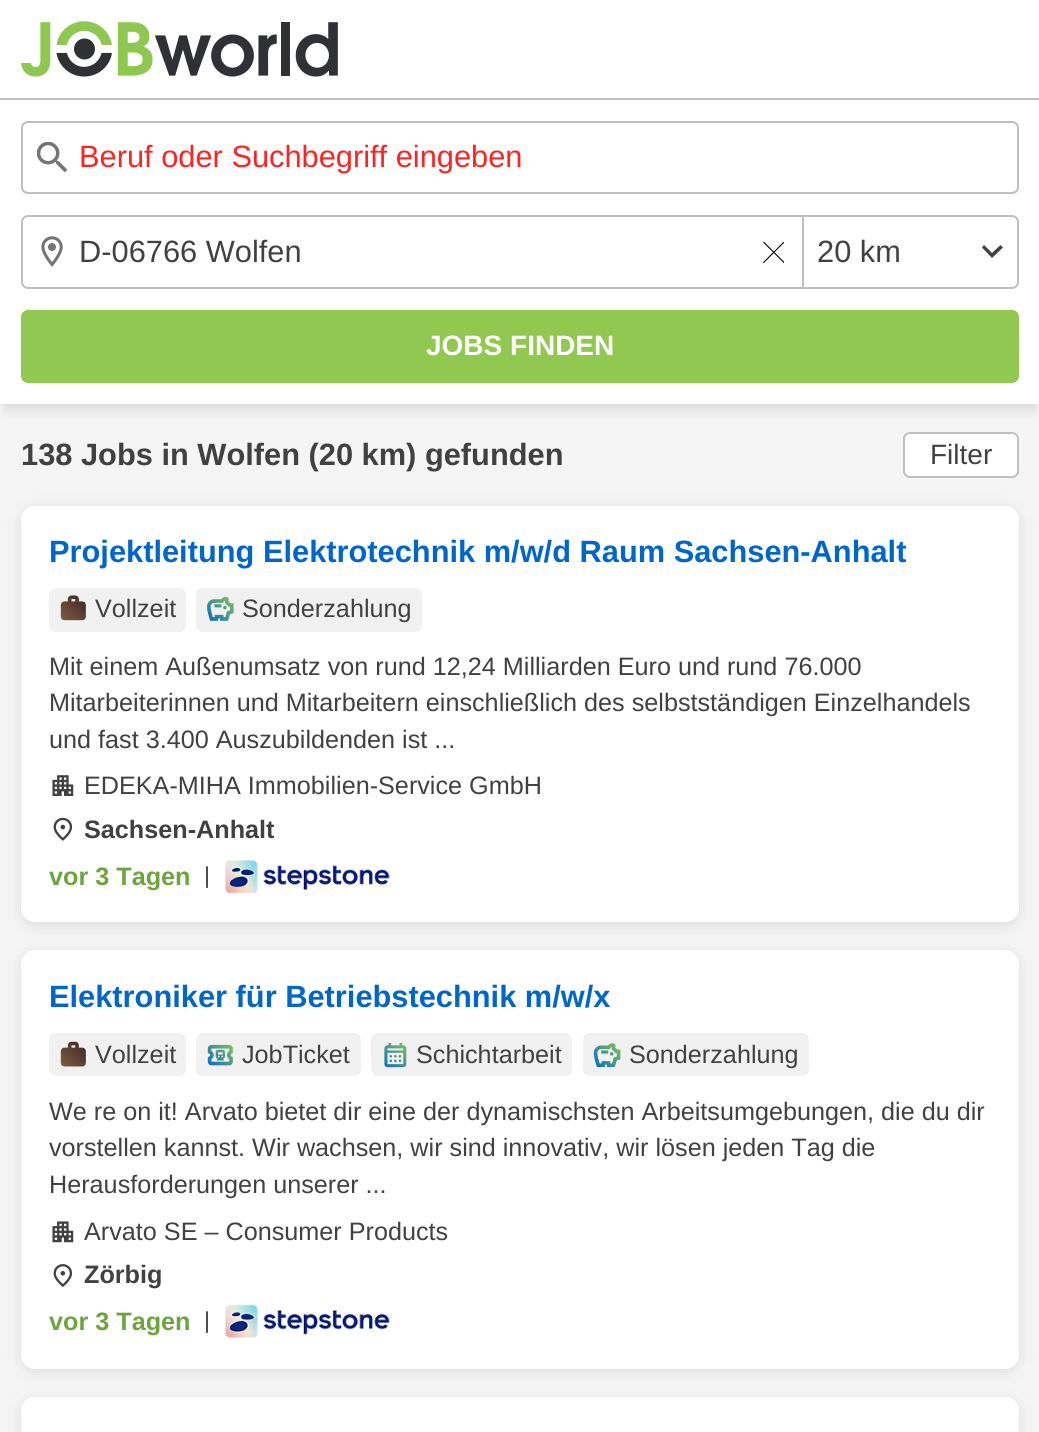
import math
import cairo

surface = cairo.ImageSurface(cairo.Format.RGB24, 1039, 1432)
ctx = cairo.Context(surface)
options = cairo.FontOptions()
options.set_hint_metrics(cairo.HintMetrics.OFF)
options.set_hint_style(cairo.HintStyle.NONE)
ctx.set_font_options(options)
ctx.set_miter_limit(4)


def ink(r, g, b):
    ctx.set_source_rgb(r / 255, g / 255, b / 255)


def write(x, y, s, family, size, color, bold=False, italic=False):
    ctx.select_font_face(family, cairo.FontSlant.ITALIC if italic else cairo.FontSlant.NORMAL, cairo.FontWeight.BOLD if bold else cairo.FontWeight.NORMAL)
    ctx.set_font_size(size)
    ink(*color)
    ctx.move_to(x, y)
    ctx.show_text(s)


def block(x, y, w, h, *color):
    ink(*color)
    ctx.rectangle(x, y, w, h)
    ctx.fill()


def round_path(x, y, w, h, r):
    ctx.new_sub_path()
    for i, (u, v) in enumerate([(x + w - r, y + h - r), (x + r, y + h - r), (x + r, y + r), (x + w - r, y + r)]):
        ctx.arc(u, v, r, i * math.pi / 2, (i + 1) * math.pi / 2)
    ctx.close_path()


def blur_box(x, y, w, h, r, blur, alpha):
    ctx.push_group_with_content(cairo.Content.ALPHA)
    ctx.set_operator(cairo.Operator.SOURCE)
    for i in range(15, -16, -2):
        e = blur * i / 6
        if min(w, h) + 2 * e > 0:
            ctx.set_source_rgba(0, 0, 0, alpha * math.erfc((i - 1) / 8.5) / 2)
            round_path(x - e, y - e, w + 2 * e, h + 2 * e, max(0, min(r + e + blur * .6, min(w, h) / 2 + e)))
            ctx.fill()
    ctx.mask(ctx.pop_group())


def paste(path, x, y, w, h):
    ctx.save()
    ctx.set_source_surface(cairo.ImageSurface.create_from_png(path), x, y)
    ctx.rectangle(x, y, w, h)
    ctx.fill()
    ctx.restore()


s1 = dict(family="Liberation Sans", size=30.8, color=(255, 34, 34))
s2 = dict(family="Liberation Sans", size=30.8, color=(65, 65, 65))
s3 = dict(family="Liberation Sans", size=28, color=(255, 255, 255), bold=True)
s4 = dict(family="Liberation Sans", size=30.8, color=(65, 65, 65), bold=True)
s5 = dict(family="Liberation Sans", size=28, color=(65, 65, 65))
s6 = dict(family="Liberation Sans", size=30.8, color=(0, 102, 204), bold=True)
s7 = dict(family="Liberation Sans", size=25.2, color=(65, 65, 65))
s8 = dict(family="Liberation Sans", size=25.2, color=(65, 65, 65), bold=True)
s9 = dict(family="Liberation Sans", size=25.2, color=(109, 164, 62), bold=True)
s10 = dict(family="Liberation Sans", size=23, color=(65, 65, 65))

ink(245, 245, 245)
ctx.paint()
block(0, 0, 1039, 98, 255, 255, 255)
ink(215, 215, 215)
blur_box(4, 114, 1032, 297, 0, 5, 0.8)
block(0, 98, 1039, 2, 191, 191, 191)
paste("pic1.png", 21, 21, 317, 56)
block(0, 100, 1039, 304, 255, 255, 255)
paste("pic2.png", 37, 142, 31, 31)
round_path(22, 122, 996, 71, 6)
ink(191, 191, 191)
ctx.stroke()
write(79, 167, "Beruf oder Suchbegriff eingeben", **s1)
round_path(22, 216, 996, 72, 6)
ink(191, 191, 191)
ctx.stroke()
paste("pic3.png", 41, 236, 22, 31)
write(79, 262, "D-06766 Wolfen", **s2)
ctx.new_path()
ctx.move_to(1000.5, 245)
ctx.line_to(992, 253)
ctx.line_to(984, 245)
ctx.line_to(982, 247.5)
ctx.line_to(992, 258)
ctx.line_to(1003, 247.5)
ctx.close_path()
ctx.fill()
block(802, 217, 2, 70, 191, 191, 191)
write(817, 262, "20 km", **s2)
paste("pic4.png", 763, 242, 21, 21)
ink(145, 200, 80)
round_path(21, 310, 998, 73, 7)
ctx.fill()
write(426, 355, "JOBS FINDEN", **s3)
write(21, 465, "138 Jobs in Wolfen (20 km) gefunden", **s4)
ink(255, 255, 255)
round_path(904, 433, 114, 44, 6)
ctx.fill_preserve()
ink(191, 191, 191)
ctx.stroke()
write(930, 464, "Filter", **s5)
ink(215, 215, 215)
blur_box(21, 509, 998, 417, 14, 7, 0.8)
ink(255, 255, 255)
round_path(21, 506, 998, 416, 14)
ctx.fill()
write(49, 562, "Projektleitung Elektrotechnik m/w/d Raum Sachsen-Anhalt", **s6)
ink(241, 241, 241)
round_path(49, 588, 137, 44, 7)
ctx.fill()
paste("pic5.png", 60, 595, 26, 26)
write(95, 617, "Vollzeit", **s7)
ink(241, 241, 241)
round_path(196, 588, 226, 44, 7)
ctx.fill()
paste("pic6.png", 207, 596, 27, 25)
write(242, 617, "Sonderzahlung", **s7)
write(49, 675, "Mit einem Außenumsatz von rund 12,24 Milliarden Euro und rund 76.000", **s7)
write(49, 711, "Mitarbeiterinnen und Mitarbeitern einschließlich des selbstständigen Einzelhandels", **s7)
write(49, 748, "und fast 3.400 Auszubildenden ist ...", **s7)
paste("pic7.png", 52, 775, 22, 21)
write(84, 794, "EDEKA-MIHA Immobilien-Service GmbH", **s7)
paste("pic8.png", 53, 817, 20, 24)
write(84, 838, "Sachsen-Anhalt", **s8)
write(49, 885, "vor 3 Tagen", **s9)
write(204, 883, "|", **s10)
paste("pic9.png", 225, 860, 165, 34)
ink(215, 215, 215)
blur_box(21, 954, 998, 418, 14, 7, 0.8)
ink(255, 255, 255)
round_path(21, 950, 998, 419, 14)
ctx.fill()
write(49, 1007, "Elektroniker für Betriebstechnik m/w/x", **s6)
ink(241, 241, 241)
round_path(49, 1033, 137, 43, 7)
ctx.fill()
paste("pic10.png", 60, 1041, 26, 26)
write(95, 1063, "Vollzeit", **s7)
ink(241, 241, 241)
round_path(196, 1033, 165, 43, 7)
ctx.fill()
paste("pic11.png", 207, 1044, 26, 22)
write(242, 1063, "JobTicket", **s7)
ink(241, 241, 241)
round_path(371, 1033, 201, 43, 7)
ctx.fill()
paste("pic12.png", 384, 1043, 23, 25)
write(416, 1063, "Schichtarbeit", **s7)
ink(241, 241, 241)
round_path(583, 1033, 226, 43, 7)
ctx.fill()
paste("pic13.png", 593, 1043, 28, 25)
write(629, 1063, "Sonderzahlung", **s7)
write(49, 1120, "We re on it! Arvato bietet dir eine der dynamischsten Arbeitsumgebungen, die du dir", **s7)
write(49, 1156, "vorstellen kannst. Wir wachsen, wir sind innovativ, wir lösen jeden Tag die", **s7)
write(49, 1193, "Herausforderungen unserer ...", **s7)
paste("pic14.png", 52, 1221, 22, 22)
write(84, 1240, "Arvato SE – Consumer Products", **s7)
paste("pic15.png", 53, 1264, 20, 24)
write(84, 1283, "Zörbig", **s8)
write(49, 1330, "vor 3 Tagen", **s9)
write(204, 1328, "|", **s10)
paste("pic16.png", 225, 1304, 165, 34)
ink(215, 215, 215)
blur_box(21, 1400, 998, 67, 14, 7, 0.8)
ink(255, 255, 255)
round_path(21, 1397, 998, 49, 14)
ctx.fill()
surface.write_to_png("screenshot.png")
